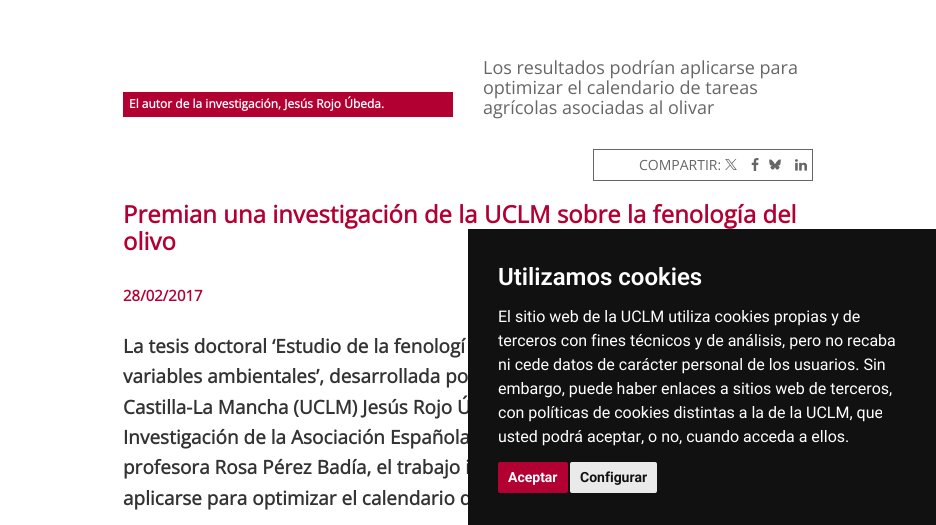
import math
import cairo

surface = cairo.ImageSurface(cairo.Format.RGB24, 936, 525)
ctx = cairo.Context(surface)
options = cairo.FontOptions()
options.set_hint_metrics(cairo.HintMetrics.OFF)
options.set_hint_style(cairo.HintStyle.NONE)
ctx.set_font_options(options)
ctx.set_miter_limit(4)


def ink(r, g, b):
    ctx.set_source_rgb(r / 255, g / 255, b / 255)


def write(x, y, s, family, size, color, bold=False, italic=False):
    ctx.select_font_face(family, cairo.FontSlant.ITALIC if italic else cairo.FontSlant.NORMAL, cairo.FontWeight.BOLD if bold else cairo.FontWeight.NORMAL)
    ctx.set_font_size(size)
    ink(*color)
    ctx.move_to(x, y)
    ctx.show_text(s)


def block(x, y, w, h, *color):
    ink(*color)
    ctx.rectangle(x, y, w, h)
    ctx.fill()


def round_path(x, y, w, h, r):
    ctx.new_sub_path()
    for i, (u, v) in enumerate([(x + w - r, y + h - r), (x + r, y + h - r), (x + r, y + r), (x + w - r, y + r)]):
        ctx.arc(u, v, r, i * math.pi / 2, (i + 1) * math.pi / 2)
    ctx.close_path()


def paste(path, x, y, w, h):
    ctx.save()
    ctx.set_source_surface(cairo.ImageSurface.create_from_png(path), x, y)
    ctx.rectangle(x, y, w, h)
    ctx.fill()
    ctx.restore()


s1 = dict(family="Open Sans", size=12, color=(255, 255, 255), bold=True)
s2 = dict(family="Open Sans", size=18, color=(102, 102, 102))
s3 = dict(family="Open Sans", size=14, color=(102, 102, 102))
s4 = dict(family="Open Sans", size=24, color=(179, 0, 51), bold=True)
s5 = dict(family="Open Sans", size=15, color=(179, 0, 51), bold=True)
s6 = dict(family="Open Sans", size=19, color=(51, 51, 51), bold=True)
s7 = dict(family="Roboto SemiBold", size=24, color=(255, 255, 255))
s8 = dict(family="Roboto", size=16, color=(255, 255, 255))
s9 = dict(family="Roboto", size=14, color=(255, 255, 255), bold=True)
s10 = dict(family="Roboto", size=14, color=(17, 17, 17), bold=True)

ink(255, 255, 255)
ctx.paint()
block(123, 92, 330, 25, 179, 0, 51)
write(129, 108, "El autor de la investigación, Jesús Rojo Úbeda.", **s1)
write(483, 74, "Los resultados podrían aplicarse para", **s2)
write(483, 94, "optimizar el calendario de tareas", **s2)
write(483, 114, "agrícolas asociadas al olivar", **s2)
ctx.rectangle(593.5, 149.5, 219, 31)
ctx.set_line_width(1)
ctx.stroke()
write(639, 170, "COMPARTIR:", **s3)
paste("pic1.png", 725, 159, 12, 11)
paste("pic2.png", 751, 158, 8, 13)
paste("pic3.png", 769, 159, 12, 11)
paste("pic4.png", 795, 159, 12, 12)
write(123, 223, "Premian una investigación de la UCLM sobre la fenología del", **s4)
write(123, 250, "olivo", **s4)
write(123, 301, "28/02/2017", **s5)
write(123, 353, "La tesis doctoral ‘Estudio de la fenologí", **s6)
write(123, 383, "variables ambientales’, desarrollada po", **s6)
write(123, 414, "Castilla-La Mancha (UCLM) Jesús Rojo Ú", **s6)
write(123, 444, "Investigación de la Asociación Española", **s6)
write(123, 474, "profesora Rosa Pérez Badía, el trabajo i", **s6)
write(123, 505, "aplicarse para optimizar el calendario d", **s6)
block(468, 229, 468, 296, 17, 17, 17)
write(498, 285, "Utilizamos cookies", **s7)
write(498, 322, "El sitio web de la UCLM utiliza cookies propias y de", **s8)
write(498, 346, "terceros con fines técnicos y de análisis, pero no recaba", **s8)
write(498, 370, "ni cede datos de carácter personal de los usuarios. Sin", **s8)
write(498, 394, "embargo, puede haber enlaces a sitios web de terceros,", **s8)
write(498, 418, "con políticas de cookies distintas a la de la UCLM, que", **s8)
write(498, 442, "usted podrá aceptar, o no, cuando acceda a ellos.", **s8)
ink(179, 0, 51)
round_path(498, 462, 70, 31, 2)
ctx.fill()
write(508, 482, "Aceptar", **s9)
ink(234, 234, 234)
round_path(570, 462, 87, 31, 2)
ctx.fill()
write(580, 482, "Configurar", **s10)
surface.write_to_png("screenshot.png")
